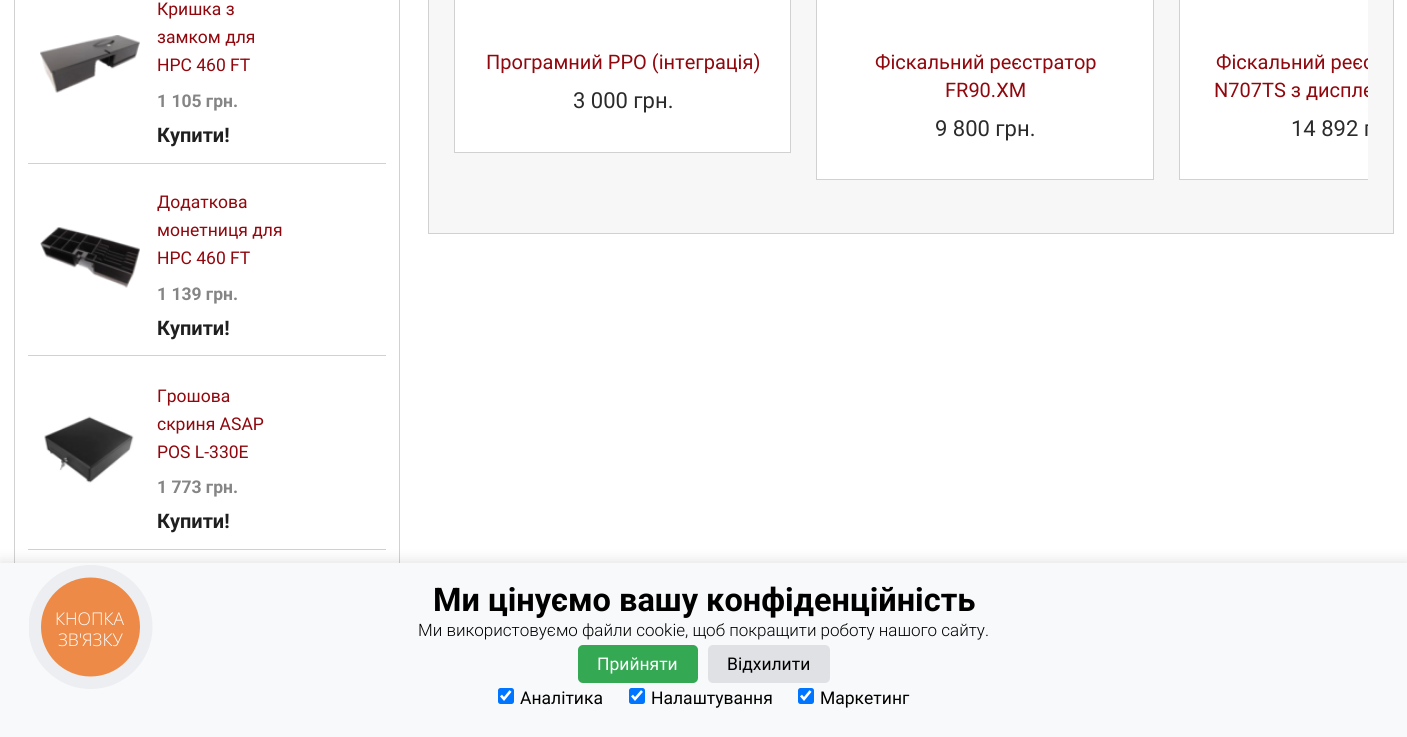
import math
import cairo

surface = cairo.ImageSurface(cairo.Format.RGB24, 1407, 737)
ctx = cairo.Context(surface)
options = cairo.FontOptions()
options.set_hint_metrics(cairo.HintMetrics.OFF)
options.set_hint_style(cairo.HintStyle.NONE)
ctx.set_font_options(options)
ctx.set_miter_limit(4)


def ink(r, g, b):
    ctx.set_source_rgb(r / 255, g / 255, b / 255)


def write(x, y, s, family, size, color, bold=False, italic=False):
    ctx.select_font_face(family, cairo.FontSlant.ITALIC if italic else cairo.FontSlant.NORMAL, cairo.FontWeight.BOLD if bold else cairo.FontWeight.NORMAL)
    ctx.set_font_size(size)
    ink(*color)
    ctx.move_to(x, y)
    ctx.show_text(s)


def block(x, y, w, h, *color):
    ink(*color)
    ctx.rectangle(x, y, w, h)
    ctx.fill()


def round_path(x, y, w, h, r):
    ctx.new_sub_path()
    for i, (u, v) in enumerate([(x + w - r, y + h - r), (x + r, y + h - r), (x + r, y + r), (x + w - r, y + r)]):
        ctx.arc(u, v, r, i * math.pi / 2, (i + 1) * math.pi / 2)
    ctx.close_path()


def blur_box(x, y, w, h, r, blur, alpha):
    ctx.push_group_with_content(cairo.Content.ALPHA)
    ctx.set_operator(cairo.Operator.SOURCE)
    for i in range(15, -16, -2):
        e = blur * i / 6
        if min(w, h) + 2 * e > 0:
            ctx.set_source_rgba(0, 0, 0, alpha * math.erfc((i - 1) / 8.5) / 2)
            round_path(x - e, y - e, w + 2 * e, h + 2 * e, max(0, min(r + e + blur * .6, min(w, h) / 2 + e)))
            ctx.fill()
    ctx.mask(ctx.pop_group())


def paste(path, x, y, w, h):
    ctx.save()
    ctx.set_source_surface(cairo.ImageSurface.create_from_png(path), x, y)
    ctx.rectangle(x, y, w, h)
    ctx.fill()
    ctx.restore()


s1 = dict(family="Roboto", size=17.5, color=(144, 7, 13))
s2 = dict(family="Roboto", size=17.5, color=(133, 133, 133), bold=True)
s3 = dict(family="Roboto", size=20, color=(31, 31, 31), bold=True)
s4 = dict(family="Roboto", size=20, color=(144, 7, 13))
s5 = dict(family="Roboto", size=22, color=(43, 43, 43))
s6 = dict(family="Open Sans Light", size=17.5, color=(255, 255, 255))
s7 = dict(family="Roboto", size=32.5, color=(0, 0, 0), bold=True)
s8 = dict(family="Roboto Light", size=17, color=(0, 0, 0))
s9 = dict(family="Roboto", size=17.5, color=(255, 255, 255))
s10 = dict(family="Roboto", size=17.5, color=(0, 0, 0))

ink(255, 255, 255)
ctx.paint()
ink(209, 209, 209)
ctx.set_fill_rule(cairo.FillRule.EVEN_ODD)
ctx.new_path()
ctx.move_to(14, -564)
ctx.line_to(400, -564)
ctx.line_to(400, 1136)
ctx.curve_to(400, 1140, 397, 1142, 394, 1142)
ctx.line_to(20, 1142)
ctx.curve_to(17, 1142, 14, 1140, 14, 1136)
ctx.close_path()
ctx.move_to(15, -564)
ctx.line_to(399, -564)
ctx.line_to(399, 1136)
ctx.curve_to(399, 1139, 397, 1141, 394, 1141)
ctx.line_to(20, 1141)
ctx.curve_to(17, 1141, 15, 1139, 15, 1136)
ctx.close_path()
ctx.fill()
block(28, 163, 358, 1, 209, 209, 209)
paste("pic1.png", 40, 35, 100, 58)
write(157, 15, "Кришка з", **s1)
write(157, 43, "замком для", **s1)
write(157, 71, "HPC 460 FT", **s1)
write(157, 107, "1 105 грн.", **s2)
write(157, 142, "Купити!", **s3)
block(28, 355, 358, 1, 209, 209, 209)
paste("pic2.png", 40, 227, 100, 61)
write(157, 208, "Додаткова", **s1)
write(157, 236, "монетниця для", **s1)
write(157, 264, "HPC 460 FT", **s1)
write(157, 300, "1 139 грн.", **s2)
write(157, 335, "Купити!", **s3)
block(28, 549, 358, 1, 209, 209, 209)
paste("pic3.png", 44, 416, 90, 67)
write(157, 402, "Грошова", **s1)
write(157, 430, "скриня ASAP", **s1)
write(157, 458, "POS L-330E", **s1)
write(157, 493, "1 773 грн.", **s2)
write(157, 528, "Купити!", **s3)
ink(247, 247, 247)
ctx.rectangle(428.5, -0.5, 965, 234)
ctx.fill_preserve()
ink(209, 209, 209)
ctx.set_line_width(1)
ctx.stroke()
ink(255, 255, 255)
ctx.rectangle(454.5, -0.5, 336, 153)
ctx.fill_preserve()
ink(209, 209, 209)
ctx.stroke()
write(486, 69, "Програмний РРО (інтеграція)", **s4)
write(573, 108, "3 000 грн.", **s5)
ink(255, 255, 255)
ctx.rectangle(816.5, -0.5, 337, 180)
ctx.fill_preserve()
ink(209, 209, 209)
ctx.stroke()
write(875, 69, "Фіскальний реєстратор", **s4)
write(945, 97, "FR90.XM", **s4)
write(935, 136, "9 800 грн.", **s5)
block(1180, 0, 188, 179, 255, 255, 255)
ctx.save()
ctx.set_fill_rule(cairo.FillRule.WINDING)
ctx.rectangle(454, 0, 914, 208)
ctx.clip()
ctx.rectangle(1179.5, -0.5, 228, 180)
ink(209, 209, 209)
ctx.stroke()
write(1216, 69, "Фіскальний реєс", **s4)
write(1214, 97, "N707TS з диспле", **s4)
ctx.restore()
ctx.save()
ctx.set_fill_rule(cairo.FillRule.WINDING)
ctx.rectangle(1205, 118, 163, 23)
ctx.clip()
write(1291, 136, "14 892 г", **s5)
ctx.restore()
ink(0, 0, 0)
blur_box(0, 560, 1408, 175, 0, 6, 0.1)
block(0, 563, 1407, 174, 248, 249, 250)
ctx.save()
ctx.set_fill_rule(cairo.FillRule.WINDING)
ctx.rectangle(29, 565, 124, 124)
ctx.clip()
ink(236, 238, 241)
ctx.arc(90.5, 627, 62, 0, 2 * math.pi)
ctx.fill()
ctx.restore()
ink(237, 138, 71)
ctx.arc(90.5, 627, 49.5, 0, 2 * math.pi)
ctx.fill()
write(55, 625, "КНОПКА", **s6)
write(58, 646, "ЗВ'ЯЗКУ", **s6)
write(433, 611, "Ми цінуємо вашу конфіденційність", **s7)
write(418, 636, "Ми використовуємо файли cookie, щоб покращити роботу нашого сайту.", **s8)
ink(52, 168, 83)
round_path(578, 645, 120, 38, 5)
ctx.fill()
write(597, 670, "Прийняти", **s9)
ink(223, 225, 229)
round_path(708, 645, 122, 38, 5)
ctx.fill()
write(727, 670, "Відхилити", **s10)
ink(0, 117, 255)
round_path(498, 688, 16, 16, 2.5)
ctx.fill()
ctx.new_path()
ctx.move_to(501, 695.5)
ctx.line_to(504, 699)
ctx.line_to(510.5, 691)
ink(255, 255, 255)
ctx.set_line_width(2.6)
ctx.stroke()
write(520, 704, "Аналітика", **s10)
ink(0, 117, 255)
round_path(629, 688, 16, 16, 2.5)
ctx.fill()
ctx.new_path()
ctx.move_to(632, 695.5)
ctx.line_to(635, 699)
ctx.line_to(642, 691)
ink(255, 255, 255)
ctx.stroke()
write(651, 704, "Налаштування", **s10)
ink(0, 117, 255)
round_path(798, 688, 16, 16, 2.5)
ctx.fill()
ctx.new_path()
ctx.move_to(801, 695.5)
ctx.line_to(804, 699)
ctx.line_to(810.5, 691)
ink(255, 255, 255)
ctx.stroke()
write(820, 704, "Маркетинг", **s10)
surface.write_to_png("screenshot.png")
